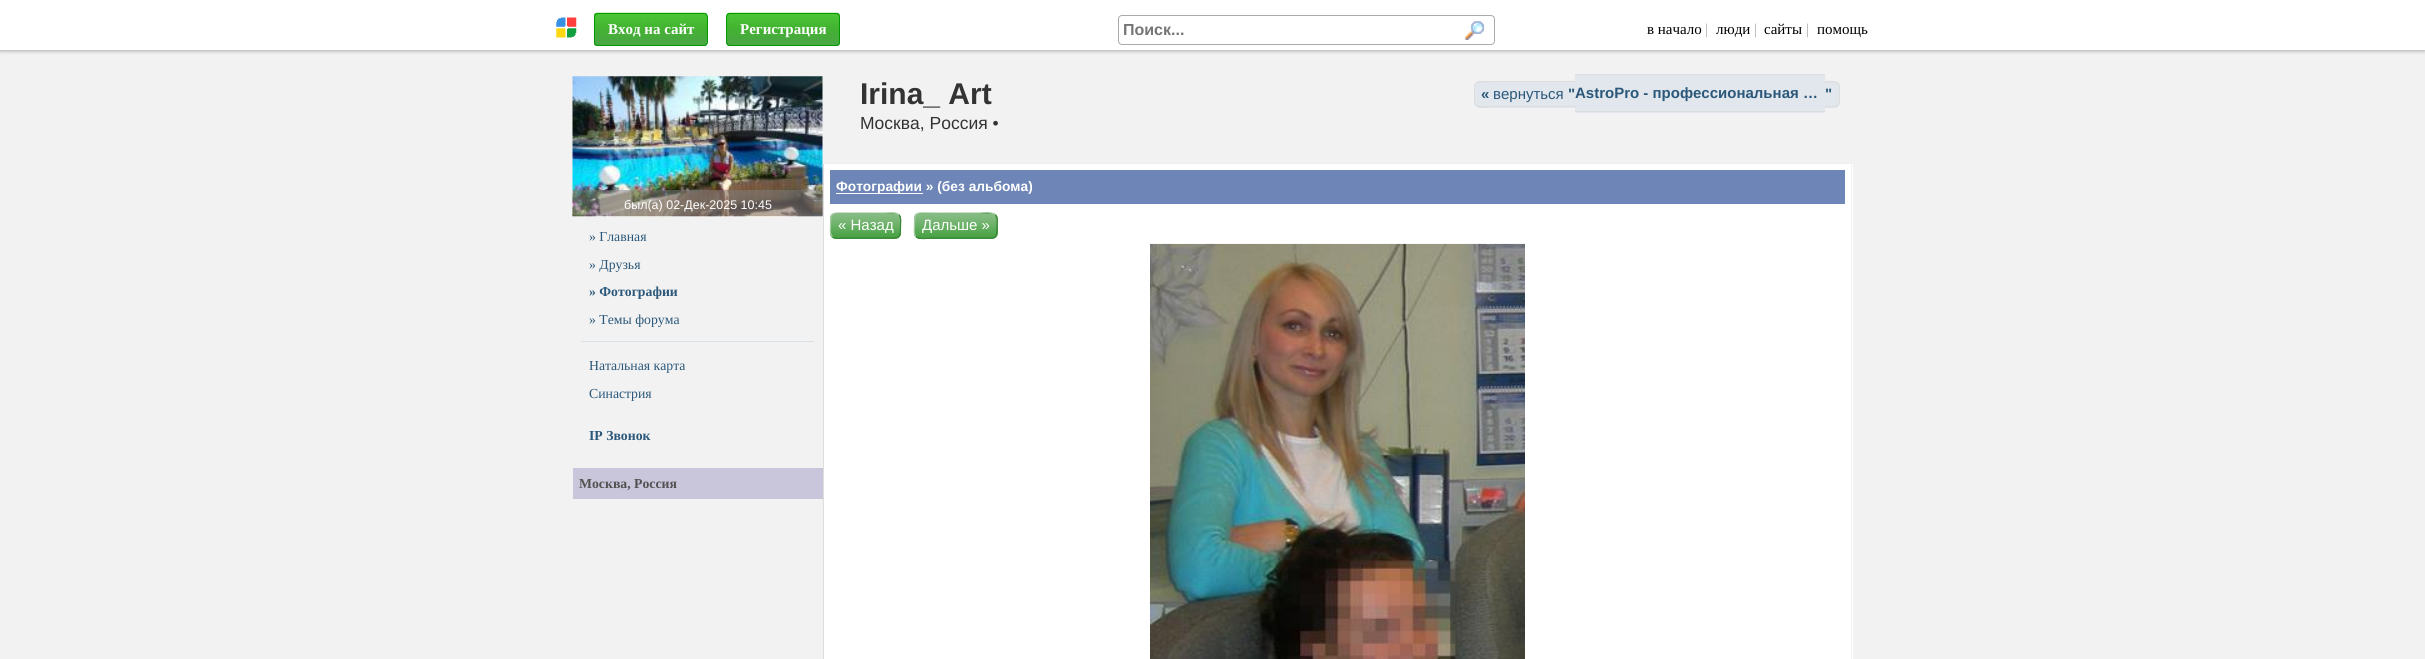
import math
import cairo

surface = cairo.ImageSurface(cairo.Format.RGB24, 2425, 659)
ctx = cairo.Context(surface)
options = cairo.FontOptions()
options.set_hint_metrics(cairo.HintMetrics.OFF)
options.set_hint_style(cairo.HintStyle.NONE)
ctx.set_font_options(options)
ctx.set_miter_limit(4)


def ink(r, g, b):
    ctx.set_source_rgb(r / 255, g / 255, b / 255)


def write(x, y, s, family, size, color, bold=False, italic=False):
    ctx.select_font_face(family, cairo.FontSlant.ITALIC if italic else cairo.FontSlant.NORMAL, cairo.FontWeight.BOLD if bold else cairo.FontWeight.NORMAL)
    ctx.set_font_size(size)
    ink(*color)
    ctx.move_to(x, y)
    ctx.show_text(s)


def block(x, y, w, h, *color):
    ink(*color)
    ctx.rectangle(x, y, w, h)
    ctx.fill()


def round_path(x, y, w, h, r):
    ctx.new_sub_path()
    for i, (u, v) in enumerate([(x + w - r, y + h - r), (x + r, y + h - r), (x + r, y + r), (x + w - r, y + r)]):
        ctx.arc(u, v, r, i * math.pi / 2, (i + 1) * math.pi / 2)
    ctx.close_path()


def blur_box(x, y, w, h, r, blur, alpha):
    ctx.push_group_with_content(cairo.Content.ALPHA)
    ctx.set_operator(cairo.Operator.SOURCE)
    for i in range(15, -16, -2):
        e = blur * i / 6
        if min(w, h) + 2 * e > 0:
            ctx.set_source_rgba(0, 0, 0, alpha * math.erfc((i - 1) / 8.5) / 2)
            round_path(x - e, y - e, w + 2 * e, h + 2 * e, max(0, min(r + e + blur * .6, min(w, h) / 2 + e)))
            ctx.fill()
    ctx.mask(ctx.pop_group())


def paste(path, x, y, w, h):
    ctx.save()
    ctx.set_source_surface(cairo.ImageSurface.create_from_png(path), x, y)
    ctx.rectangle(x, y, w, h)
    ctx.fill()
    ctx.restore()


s1 = dict(family="Liberation Serif", size=15, color=(255, 255, 255), bold=True)
s2 = dict(family="Liberation Sans", size=16, color=(117, 117, 117), bold=True)
s3 = dict(family="Liberation Serif", size=15, color=(0, 0, 0))
s4 = dict(family="Liberation Serif", size=15, color=(170, 170, 170))
s5 = dict(family="Liberation Sans", size=30, color=(51, 51, 51), bold=True)
s6 = dict(family="Liberation Sans", size=17.5, color=(51, 51, 51))
s7 = dict(family="Liberation Sans", size=15, color=(43, 88, 122), bold=True)
s8 = dict(family="Liberation Sans", size=15, color=(43, 88, 122))
s9 = dict(family="Liberation Sans", size=12.5, color=(255, 255, 255))
s10 = dict(family="Liberation Serif", size=13.75, color=(43, 88, 122))
s11 = dict(family="Liberation Serif", size=13.75, color=(43, 88, 122), bold=True)
s12 = dict(family="Liberation Serif", size=13.75, color=(83, 81, 81), bold=True)
s13 = dict(family="Liberation Sans", size=13.75, color=(255, 255, 255), bold=True)
s14 = dict(family="Liberation Sans", size=15, color=(255, 255, 255))

ink(242, 242, 242)
ctx.paint()
ink(170, 170, 170)
blur_box(0, 1, 2425, 50, 0, 2, 1)
block(0, 0, 2425, 50, 255, 255, 255)
paste("pic1.png", 556, 17, 21, 21)
paste("pic2.png", 593, 12, 115, 34)
round_path(594.5, 13.5, 113, 32, 3.5)
ink(0, 153, 0)
ctx.set_line_width(1)
ctx.stroke()
write(608, 34, "Вход на сайт", **s1)
paste("pic3.png", 726, 12, 114, 34)
round_path(726.5, 13.5, 113, 32, 3.5)
ink(0, 153, 0)
ctx.stroke()
write(740, 34, "Регистрация", **s1)
round_path(1118.5, 15.5, 376, 29, 3.5)
ink(170, 170, 170)
ctx.stroke()
write(1123, 35, "Поиск...", **s2)
paste("pic4.png", 1464, 21, 20, 19)
write(1647, 34, "в начало", **s3)
write(1705, 34, "|", **s4)
write(1716, 34, "люди", **s3)
write(1754, 34, "|", **s4)
write(1764, 34, "сайты", **s3)
write(1806, 34, "|", **s4)
write(1817, 34, "помощь", **s3)
write(860, 104, "Irina_ Аrt", **s5)
write(860, 129, "Москва, Россия •", **s6)
ink(225, 231, 237)
ctx.new_path()
ctx.move_to(1480, 81)
ctx.line_to(1489, 81)
ctx.line_to(1489, 108)
ctx.line_to(1480, 108)
ctx.curve_to(1476.5, 108, 1474, 105.5, 1474, 102)
ctx.line_to(1474, 87)
ctx.curve_to(1474, 83.5, 1476.5, 81, 1480, 81)
ctx.close_path()
ctx.fill()
ink(221, 221, 221)
ctx.set_fill_rule(cairo.FillRule.EVEN_ODD)
ctx.new_path()
ctx.move_to(1480, 81)
ctx.line_to(1489, 81)
ctx.line_to(1489, 107.5)
ctx.line_to(1480, 107.5)
ctx.curve_to(1476.5, 107.5, 1474, 104.5, 1474, 101)
ctx.line_to(1474, 87.5)
ctx.curve_to(1474, 84, 1476.5, 81, 1480, 81)
ctx.close_path()
ctx.move_to(1480, 82.5)
ctx.line_to(1489, 82.5)
ctx.line_to(1489, 106)
ctx.line_to(1480, 106)
ctx.curve_to(1477, 106, 1475, 104, 1475, 101)
ctx.line_to(1475, 87.5)
ctx.curve_to(1475, 84.5, 1477, 82.5, 1480, 82.5)
ctx.close_path()
ctx.fill()
block(1489, 82, 80, 26, 225, 231, 237)
block(1489, 81, 80, 1, 221, 221, 221)
block(1489, 106, 80, 1, 221, 221, 221)
block(1569, 81, 6, 27, 225, 231, 237)
block(1569, 81, 6, 1, 221, 221, 221)
block(1569, 106, 6, 1, 221, 221, 221)
block(1575, 75, 250, 38, 225, 231, 237)
block(1575, 74, 250, 1, 221, 221, 221)
block(1575, 111, 250, 1, 221, 221, 221)
ink(225, 231, 237)
ctx.new_path()
ctx.move_to(1825, 81)
ctx.line_to(1834, 81)
ctx.curve_to(1837.5, 81, 1840, 83.5, 1840, 87)
ctx.line_to(1840, 102)
ctx.curve_to(1840, 105.5, 1837.5, 108, 1834, 108)
ctx.line_to(1825, 108)
ctx.close_path()
ctx.fill()
ink(221, 221, 221)
ctx.new_path()
ctx.move_to(1825, 81)
ctx.curve_to(1830, 81, 1838.5, 79.5, 1840, 86)
ctx.line_to(1840, 102.5)
ctx.curve_to(1838.5, 109, 1830, 107.5, 1825, 107.5)
ctx.close_path()
ctx.move_to(1825, 82.5)
ctx.line_to(1834, 82.5)
ctx.curve_to(1836.5, 82.5, 1839, 84.5, 1839, 87.5)
ctx.line_to(1839, 101)
ctx.curve_to(1839, 104, 1836.5, 106, 1834, 106)
ctx.line_to(1825, 106)
ctx.close_path()
ctx.fill()
write(1481, 99, "«", **s7)
write(1493, 99, "вернуться", **s8)
write(1568, 99, "\"", **s7)
write(1575, 98, "AstroPro - профессиональная …", **s7)
write(1825, 99, "\"", **s7)
block(823, 163, 1030, 1, 238, 238, 238)
paste("pic5.png", 572, 76, 251, 141)
ctx.set_source_rgba(0.502, 0.502, 0.502, 0.5)
ctx.rectangle(573, 190, 250, 26)
ctx.fill()
write(624, 209, "был(а) 02-Дек-2025 10:45", **s9)
write(589, 241, "» Главная", **s10)
write(589, 269, "» Друзья", **s10)
write(589, 296, "» Фотографии", **s11)
write(589, 324, "» Темы форума", **s10)
block(581, 341, 233, 1, 218, 225, 232)
write(589, 370, "Натальная карта", **s10)
write(589, 398, "Синастрия", **s10)
write(589, 440, "IP Звонок", **s11)
block(573, 468, 250, 31, 201, 197, 219)
write(579, 488, "Москва, Россия", **s12)
block(824, 164, 1029, 495, 255, 255, 255)
block(1851, 164, 1, 495, 242, 242, 242)
block(823, 164, 1, 495, 221, 221, 221)
block(830, 170, 1015, 34, 109, 134, 183)
block(836, 193, 87, 1, 255, 255, 255)
write(836, 191, "Фотографии » (без альбома)", **s13)
ink(66, 159, 61)
round_path(830, 213, 71, 26, 6)
ctx.fill()
paste("pic6.png", 830, 213, 72, 26)
round_path(914, 213, 84, 26, 6)
ctx.fill()
paste("pic7.png", 913, 213, 85, 26)
ctx.new_path()
ctx.move_to(899, 215)
ctx.curve_to(901.5, 217.5, 900.5, 222.5, 900.5, 225.5)
ctx.curve_to(900.5, 239.5, 899.5, 238, 885, 238)
ctx.line_to(846, 238)
ctx.curve_to(843.5, 238, 835.5, 239.5, 832.5, 236.5)
ink(58, 134, 54)
ctx.set_line_width(1.2)
ctx.stroke()
ctx.new_path()
ctx.move_to(832.5, 236.5)
ctx.curve_to(829.5, 234, 830.5, 229, 830.5, 225.5)
ctx.curve_to(830.5, 211.5, 831.5, 213, 846, 213)
ctx.line_to(885, 213)
ctx.curve_to(888, 213, 896, 211.5, 899, 215)
ink(168, 203, 166)
ctx.stroke()
write(838, 230, "« Назад", **s14)
ctx.new_path()
ctx.move_to(995, 215)
ctx.curve_to(998, 217.5, 997, 222.5, 997, 225.5)
ctx.curve_to(997, 240.5, 995, 238, 979.5, 238)
ctx.line_to(932, 238)
ctx.curve_to(929.5, 238, 919.5, 240, 916, 236.5)
ink(58, 134, 54)
ctx.stroke()
ctx.new_path()
ctx.move_to(916, 236.5)
ctx.curve_to(913.5, 234, 914.5, 229, 914.5, 225.5)
ctx.curve_to(914.5, 210.5, 916, 213, 932, 213)
ctx.line_to(979.5, 213)
ctx.curve_to(981.5, 213, 991.5, 211, 995, 215)
ink(168, 203, 166)
ctx.stroke()
write(922, 230, "Дальше »", **s14)
paste("pic8.png", 1150, 243, 375, 416)
surface.write_to_png("screenshot.png")
